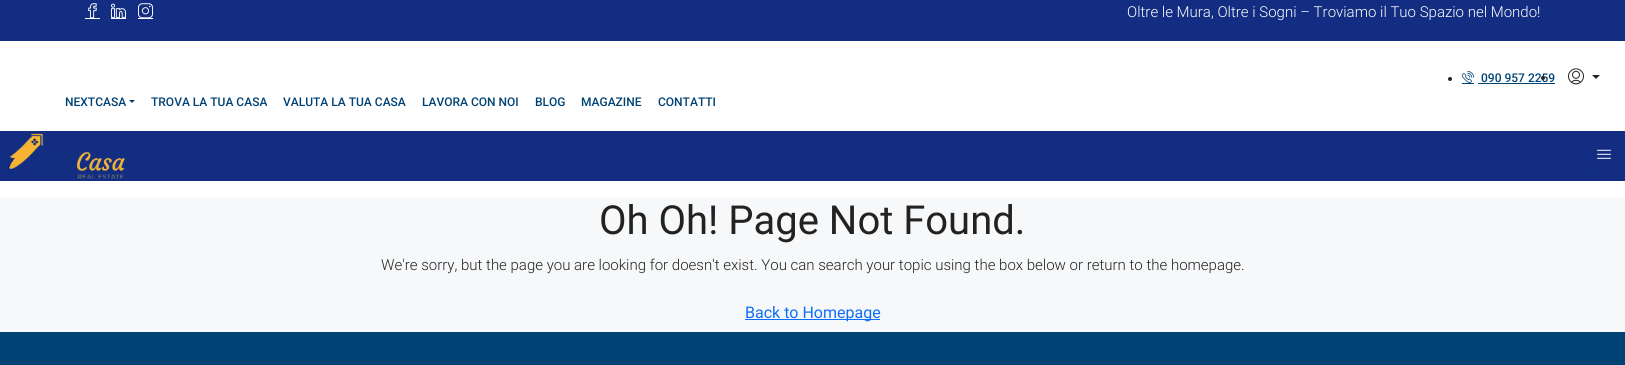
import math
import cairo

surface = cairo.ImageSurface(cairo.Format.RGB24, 1625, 365)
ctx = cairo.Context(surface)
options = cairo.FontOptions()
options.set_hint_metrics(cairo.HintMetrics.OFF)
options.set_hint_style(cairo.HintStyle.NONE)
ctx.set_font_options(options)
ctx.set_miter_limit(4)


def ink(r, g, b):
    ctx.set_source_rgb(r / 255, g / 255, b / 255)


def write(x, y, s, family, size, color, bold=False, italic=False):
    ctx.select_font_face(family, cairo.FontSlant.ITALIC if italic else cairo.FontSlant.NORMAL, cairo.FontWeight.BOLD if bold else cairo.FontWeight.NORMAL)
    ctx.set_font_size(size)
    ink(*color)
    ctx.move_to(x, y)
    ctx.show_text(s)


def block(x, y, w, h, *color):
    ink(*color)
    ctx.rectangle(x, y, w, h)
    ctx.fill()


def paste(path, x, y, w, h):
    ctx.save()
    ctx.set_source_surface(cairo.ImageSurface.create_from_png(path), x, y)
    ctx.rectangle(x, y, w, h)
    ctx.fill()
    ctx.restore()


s1 = dict(family="Roboto Light", size=15, color=(255, 255, 255))
s2 = dict(family="Roboto Medium", size=12, color=(0, 66, 116))
s3 = dict(family="Roboto", size=40, color=(34, 34, 34))
s4 = dict(family="Roboto Light", size=15, color=(34, 34, 34))
s5 = dict(family="Roboto", size=16, color=(13, 110, 253))

ink(247, 248, 249)
ctx.paint()
block(0, 0, 1625, 41, 18, 45, 129)
paste("pic1.png", 88, 3, 9, 15)
block(85, 18, 15, 1, 255, 255, 255)
paste("pic2.png", 111, 3, 15, 15)
block(111, 18, 15, 1, 255, 255, 255)
paste("pic3.png", 138, 3, 15, 15)
block(138, 18, 15, 1, 255, 255, 255)
write(1127, 17, "Oltre le Mura, Oltre i Sogni – Troviamo il Tuo Spazio nel Mondo!", **s1)
block(0, 41, 1625, 90, 255, 255, 255)
ink(34, 34, 34)
ctx.new_path()
ctx.arc(1450, 79, 2, 0, 2 * math.pi)
ctx.fill()
paste("pic4.png", 1462, 71, 12, 12)
write(1481, 82, "090 957 2259", **s2)
block(1462, 83, 12, 1, 0, 66, 116)
block(1478, 83, 77, 1, 0, 66, 116)
ink(34, 34, 34)
ctx.new_path()
ctx.arc(1543, 78, 2, 0, 2 * math.pi)
ctx.fill()
paste("pic5.png", 1568, 68, 16, 17)
ink(33, 37, 41)
ctx.new_path()
ctx.move_to(1592, 75)
ctx.line_to(1600, 75)
ctx.line_to(1596, 79)
ctx.close_path()
ctx.fill()
write(65, 106, "NEXTCASA", **s2)
ctx.new_path()
ctx.move_to(129, 100)
ctx.line_to(135, 100)
ctx.line_to(132, 103)
ctx.close_path()
ctx.fill()
write(151, 106, "TROVA LA TUA CASA", **s2)
write(283, 106, "VALUTA LA TUA CASA", **s2)
write(422, 106, "LAVORA CON NOI", **s2)
write(535, 106, "BLOG", **s2)
write(581, 106, "MAGAZINE", **s2)
write(658, 106, "CONTATTI", **s2)
block(0, 131, 1625, 50, 18, 45, 129)
paste("pic6.png", 1, 133, 124, 46)
paste("pic7.png", 1597, 149, 14, 10)
block(1584, 174, 8, 1, 14, 48, 131)
block(0, 181, 1625, 16, 255, 255, 255)
write(599, 234, "Oh Oh! Page Not Found.", **s3)
write(381, 270, "We're sorry, but the page you are looking for doesn't exist. You can search your topic using the box below or return to the homepage.", **s4)
block(745, 319, 135, 1, 13, 110, 253)
write(745, 318, "Back to Homepage", **s5)
block(0, 332, 1625, 33, 0, 66, 116)
surface.write_to_png("screenshot.png")
